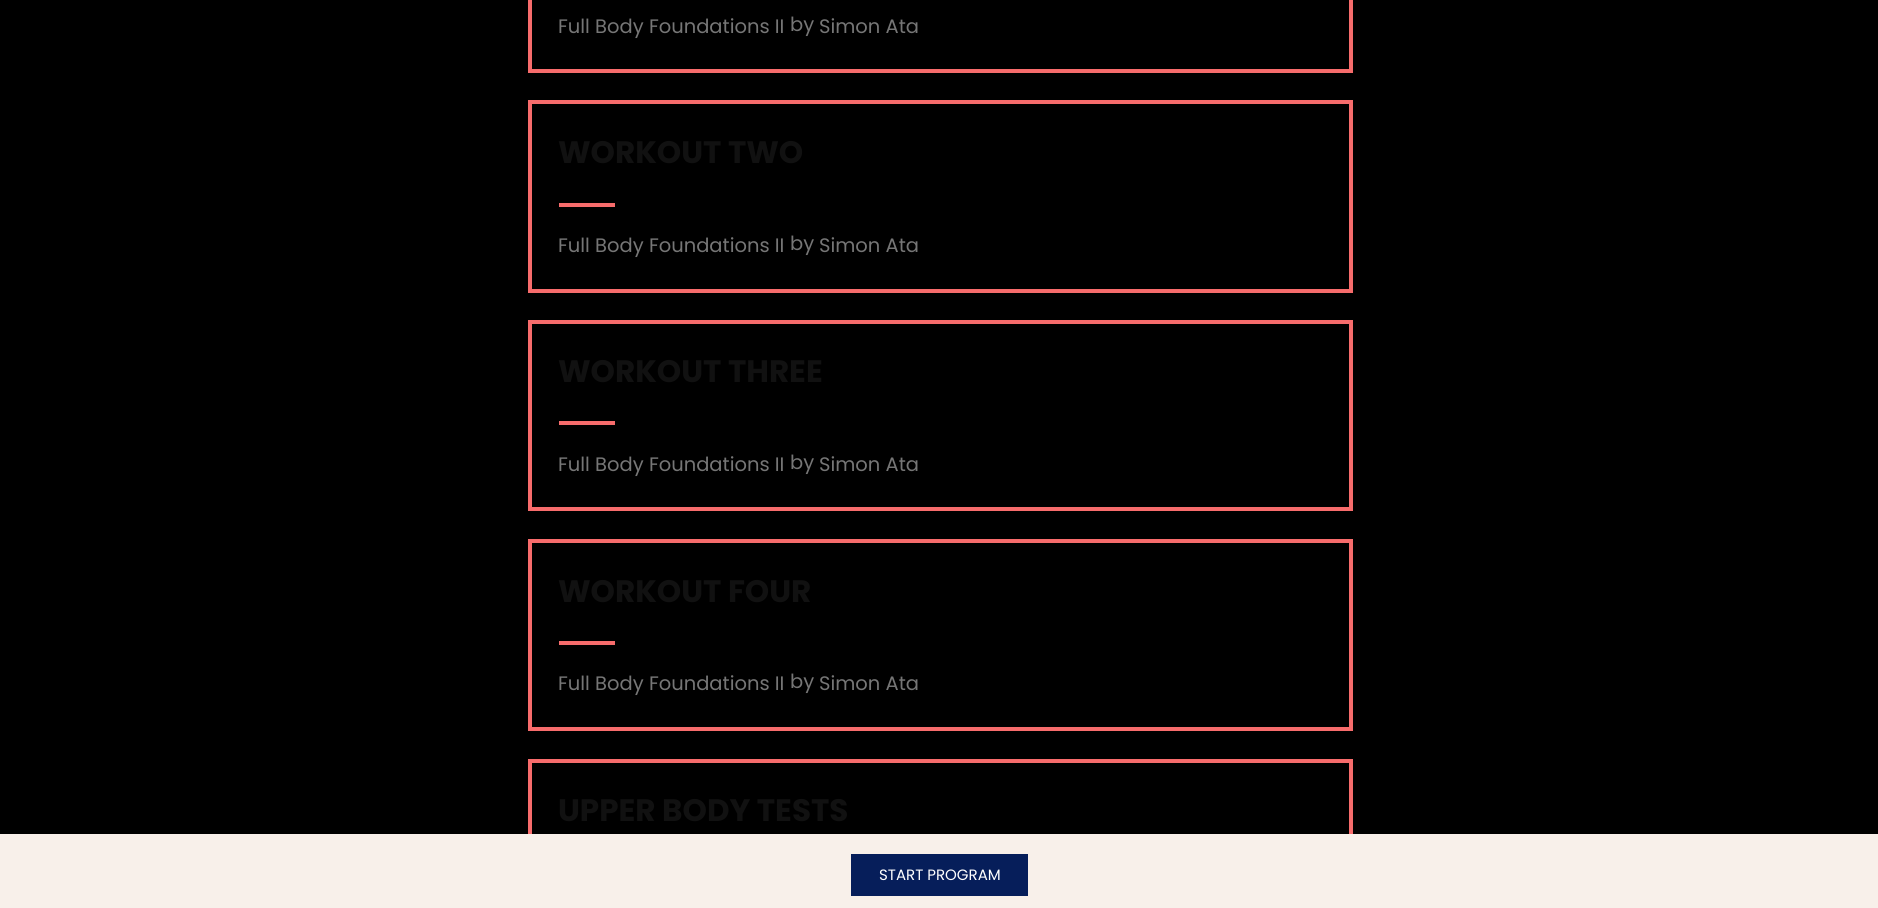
import math
import cairo

surface = cairo.ImageSurface(cairo.Format.RGB24, 1878, 908)
ctx = cairo.Context(surface)
options = cairo.FontOptions()
options.set_hint_metrics(cairo.HintMetrics.OFF)
options.set_hint_style(cairo.HintStyle.NONE)
ctx.set_font_options(options)
ctx.set_miter_limit(4)


def ink(r, g, b):
    ctx.set_source_rgb(r / 255, g / 255, b / 255)


def write(x, y, s, family, size, color, bold=False, italic=False):
    ctx.select_font_face(family, cairo.FontSlant.ITALIC if italic else cairo.FontSlant.NORMAL, cairo.FontWeight.BOLD if bold else cairo.FontWeight.NORMAL)
    ctx.set_font_size(size)
    ink(*color)
    ctx.move_to(x, y)
    ctx.show_text(s)


def block(x, y, w, h, *color):
    ink(*color)
    ctx.rectangle(x, y, w, h)
    ctx.fill()


s1 = dict(family="Poppins", size=19.5, color=(118, 118, 118))
s2 = dict(family="Poppins", size=31, color=(17, 17, 17), bold=True)
s3 = dict(family="Poppins", size=15, color=(255, 255, 255))

ink(0, 0, 0)
ctx.paint()
ctx.rectangle(530, -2, 821, 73)
ink(247, 108, 108)
ctx.set_line_width(4)
ctx.stroke()
write(558, 33, "Full Body Foundations II", **s1)
write(790, 31, "by", **s1)
write(819, 33, "Simon Ata", **s1)
ctx.rectangle(530, 102, 821, 189)
ink(247, 108, 108)
ctx.stroke()
write(558, 163, "WORKOUT TWO", **s2)
block(559, 203, 56, 4, 247, 108, 108)
write(558, 252, "Full Body Foundations II", **s1)
write(790, 250, "by", **s1)
write(819, 252, "Simon Ata", **s1)
ctx.rectangle(530, 322, 821, 187)
ink(247, 108, 108)
ctx.stroke()
write(558, 382, "WORKOUT THREE", **s2)
block(559, 421, 56, 4, 247, 108, 108)
write(558, 471, "Full Body Foundations II", **s1)
write(790, 469, "by", **s1)
write(819, 471, "Simon Ata", **s1)
ctx.rectangle(530, 541, 821, 188)
ink(247, 108, 108)
ctx.stroke()
write(558, 602, "WORKOUT FOUR", **s2)
block(559, 641, 56, 4, 247, 108, 108)
write(558, 690, "Full Body Foundations II", **s1)
write(790, 688, "by", **s1)
write(819, 690, "Simon Ata", **s1)
ctx.rectangle(530, 761, 821, 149)
ink(247, 108, 108)
ctx.stroke()
write(558, 821, "UPPER BODY TESTS", **s2)
block(0, 834, 1878, 74, 248, 240, 234)
block(851, 854, 177, 42, 6, 30, 90)
write(879, 880, "START PROGRAM", **s3)
surface.write_to_png("screenshot.png")
